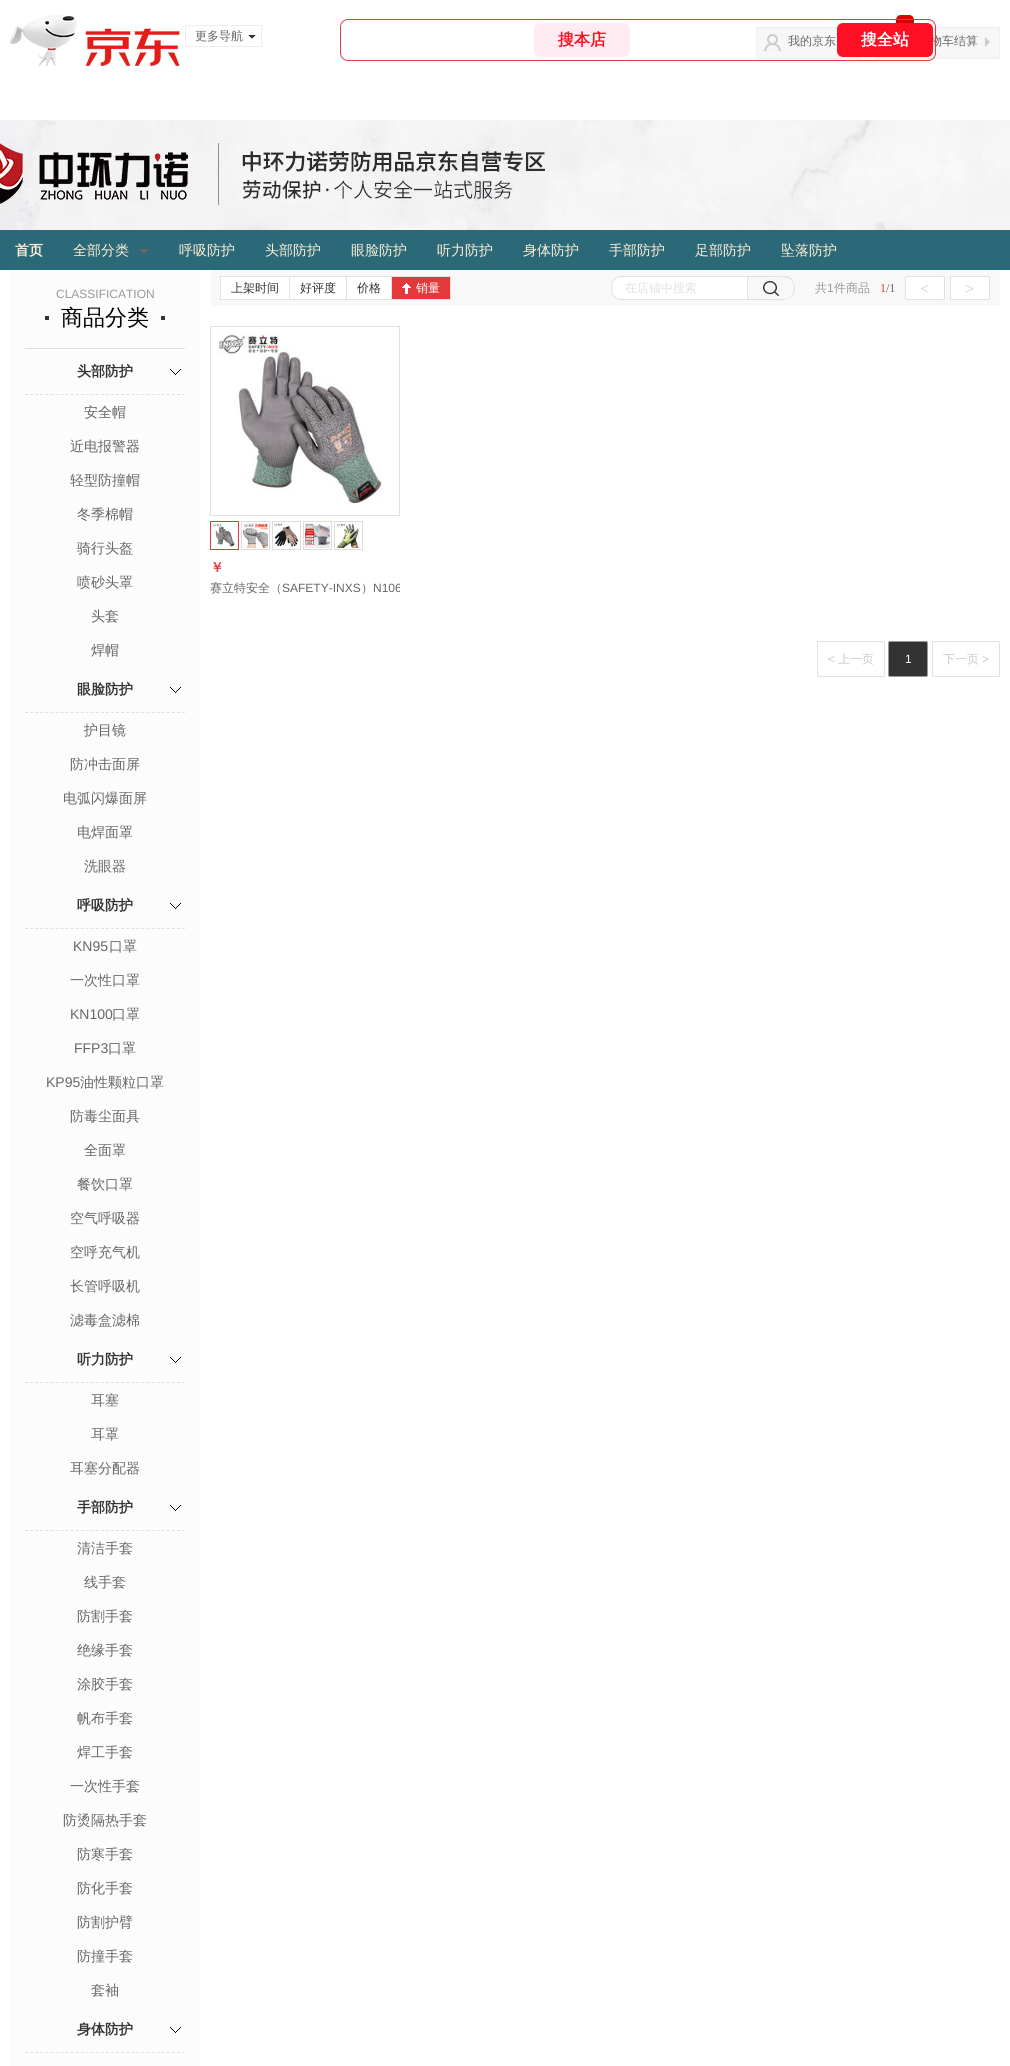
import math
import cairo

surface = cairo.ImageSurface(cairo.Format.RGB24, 1010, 2066)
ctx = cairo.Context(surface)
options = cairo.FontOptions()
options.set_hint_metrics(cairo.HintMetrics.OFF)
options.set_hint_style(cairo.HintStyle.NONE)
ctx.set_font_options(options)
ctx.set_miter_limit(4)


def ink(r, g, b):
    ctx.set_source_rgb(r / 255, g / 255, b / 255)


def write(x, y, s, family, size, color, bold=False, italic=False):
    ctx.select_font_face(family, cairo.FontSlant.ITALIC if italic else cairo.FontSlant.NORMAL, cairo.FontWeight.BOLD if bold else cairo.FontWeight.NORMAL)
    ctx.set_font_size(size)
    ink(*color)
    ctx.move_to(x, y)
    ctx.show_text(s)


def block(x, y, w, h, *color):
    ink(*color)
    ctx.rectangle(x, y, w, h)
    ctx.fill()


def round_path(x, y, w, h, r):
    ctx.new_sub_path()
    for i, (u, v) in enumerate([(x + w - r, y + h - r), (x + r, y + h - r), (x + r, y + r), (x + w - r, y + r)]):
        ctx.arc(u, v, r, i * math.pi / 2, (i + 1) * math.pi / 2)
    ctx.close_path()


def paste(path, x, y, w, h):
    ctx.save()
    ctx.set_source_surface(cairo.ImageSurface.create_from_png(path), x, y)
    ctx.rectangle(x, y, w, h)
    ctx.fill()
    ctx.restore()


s1 = dict(family="WenQuanYi Zen Hei Medium", size=12, color=(102, 102, 102))
s2 = dict(family="WenQuanYi Zen Hei", size=16, color=(255, 15, 35), bold=True)
s3 = dict(family="WenQuanYi Zen Hei", size=16, color=(255, 255, 255), bold=True)
s4 = dict(family="WenQuanYi Zen Hei", size=14, color=(255, 240, 214), bold=True)
s5 = dict(family="WenQuanYi Zen Hei Medium", size=14, color=(255, 240, 214))
s6 = dict(family="Liberation Sans", size=12, color=(153, 153, 153))
s7 = dict(family="WenQuanYi Zen Hei Medium", size=22, color=(0, 0, 0))
s8 = dict(family="WenQuanYi Zen Hei", size=14, color=(51, 51, 51), bold=True)
s9 = dict(family="WenQuanYi Zen Hei Medium", size=14, color=(102, 102, 102))
s10 = dict(family="Liberation Sans", size=14, color=(102, 102, 102))
s11 = dict(family="WenQuanYi Zen Hei Medium", size=12, color=(51, 51, 51))
s12 = dict(family="WenQuanYi Zen Hei Medium", size=12, color=(255, 255, 255))
s13 = dict(family="WenQuanYi Zen Hei Medium", size=12, color=(226, 226, 226))
s14 = dict(family="WenQuanYi Zen Hei Medium", size=12, color=(153, 153, 153))
s15 = dict(family="Liberation Serif", size=12, color=(228, 57, 60))
s16 = dict(family="Liberation Serif", size=12, color=(102, 102, 102))
s17 = dict(family="Liberation Serif", size=16, color=(201, 201, 201))
s18 = dict(family="WenQuanYi Zen Hei", size=14, color=(228, 57, 60), bold=True)
s19 = dict(family="Liberation Sans", size=12, color=(102, 102, 102))
s20 = dict(family="Liberation Sans", size=12, color=(201, 201, 201))
s21 = dict(family="WenQuanYi Zen Hei Medium", size=12, color=(201, 201, 201))
s22 = dict(family="Liberation Sans", size=12, color=(255, 255, 255))

ink(255, 255, 255)
ctx.paint()
paste("pic1.png", 10, 15, 170, 51)
ctx.rectangle(185.5, 25.5, 76, 21)
ink(238, 238, 238)
ctx.set_line_width(1)
ctx.stroke()
write(195, 40, "更多导航", **s1)
ink(51, 51, 51)
ctx.new_path()
ctx.move_to(248, 35)
ctx.line_to(256, 35)
ctx.line_to(252, 39)
ctx.close_path()
ctx.fill()
ink(255, 255, 255)
ctx.new_path()
ctx.move_to(256, 35)
ctx.line_to(256, 43)
ctx.line_to(252, 39)
ctx.close_path()
ctx.move_to(248, 43)
ctx.line_to(248, 35)
ctx.line_to(252, 39)
ctx.close_path()
ctx.fill()
block(757, 28, 104, 30, 247, 247, 247)
paste("pic2.png", 762, 34, 19, 17)
ctx.rectangle(756.5, 27.5, 105, 31)
ink(239, 239, 239)
ctx.stroke()
ink(247, 247, 247)
ctx.rectangle(874.5, 27.5, 125, 31)
ctx.fill_preserve()
ink(239, 239, 239)
ctx.stroke()
paste("pic3.png", 895, 15, 19, 8)
paste("pic4.png", 903, 15, 11, 8)
write(930, 45, "物车结算", **s1)
round_path(340.5, 19.5, 595, 41, 7.5)
ink(228, 57, 60)
ctx.stroke()
ink(255, 255, 255)
ctx.new_path()
ctx.move_to(349, 20)
ctx.line_to(536, 20)
ctx.line_to(536, 50)
ctx.line_to(341, 50)
ctx.line_to(341, 28)
ctx.curve_to(341, 23.5, 344.5, 20, 349, 20)
ctx.close_path()
ctx.fill()
ink(255, 235, 241)
round_path(534, 23, 96, 34, 6)
ctx.fill()
write(558, 45, "搜本店", **s2)
round_path(837, 23, 96, 34, 6)
ctx.fill()
write(861, 45, "搜全站", **s3)
write(788, 45, "我的京东", **s1)
ink(204, 204, 204)
ctx.new_path()
ctx.move_to(985, 47)
ctx.line_to(985, 37)
ctx.line_to(990, 42)
ctx.close_path()
ctx.fill()
paste("pic5.png", 0, 120, 1010, 110)
block(0, 230, 1010, 40, 44, 105, 120)
write(15, 255, "首页", **s4)
write(73, 255, "全部分类", **s5)
ink(102, 102, 102)
ctx.new_path()
ctx.move_to(139, 249)
ctx.line_to(149, 249)
ctx.line_to(144, 254)
ctx.close_path()
ctx.fill()
write(179, 255, "呼吸防护", **s5)
write(265, 255, "头部防护", **s5)
write(351, 255, "眼脸防护", **s5)
write(437, 255, "听力防护", **s5)
write(523, 255, "身体防护", **s5)
write(609, 255, "手部防护", **s5)
write(695, 255, "足部防护", **s5)
write(781, 255, "坠落防护", **s5)
block(10, 270, 190, 1796, 252, 252, 252)
write(56, 298, "CLASSIFICATION", **s6)
block(25, 348, 160, 1, 225, 225, 225)
block(45, 316, 4, 4, 51, 51, 51)
write(61, 325, "商品分类", **s7)
block(161, 316, 4, 4, 51, 51, 51)
ctx.new_path()
ctx.move_to(25, 394.5)
ctx.line_to(185, 394.5)
ink(225, 225, 225)
ctx.set_dash([3, 2.06])
ctx.stroke()
write(77, 376, "头部防护", **s8)
paste("pic6.png", 170, 369, 11, 6)
write(84, 417, "安全帽", **s9)
write(70, 451, "近电报警器", **s9)
write(70, 485, "轻型防撞帽", **s9)
write(77, 519, "冬季棉帽", **s9)
write(77, 553, "骑行头盔", **s9)
write(77, 587, "喷砂头罩", **s9)
write(91, 621, "头套", **s9)
write(91, 655, "焊帽", **s9)
ctx.new_path()
ctx.move_to(25, 712.5)
ctx.line_to(185, 712.5)
ink(225, 225, 225)
ctx.stroke()
write(77, 694, "眼脸防护", **s8)
paste("pic6.png", 170, 687, 11, 6)
write(84, 735, "护目镜", **s9)
write(70, 769, "防冲击面屏", **s9)
write(63, 803, "电弧闪爆面屏", **s9)
write(77, 837, "电焊面罩", **s9)
write(84, 871, "洗眼器", **s9)
ctx.new_path()
ctx.move_to(25, 928.5)
ctx.line_to(185, 928.5)
ink(225, 225, 225)
ctx.stroke()
write(77, 910, "呼吸防护", **s8)
paste("pic6.png", 170, 903, 11, 6)
write(73, 951, "KN95", **s10)
write(109, 951, "口罩", **s9)
write(70, 985, "一次性口罩", **s9)
write(70, 1019, "KN100", **s10)
write(112, 1019, "口罩", **s9)
write(74, 1053, "FFP3", **s10)
write(108, 1053, "口罩", **s9)
write(46, 1087, "KP95", **s10)
write(80, 1087, "油性颗粒口罩", **s9)
write(70, 1121, "防毒尘面具", **s9)
write(84, 1155, "全面罩", **s9)
write(77, 1189, "餐饮口罩", **s9)
write(70, 1223, "空气呼吸器", **s9)
write(70, 1257, "空呼充气机", **s9)
write(70, 1291, "长管呼吸机", **s9)
write(70, 1325, "滤毒盒滤棉", **s9)
ctx.new_path()
ctx.move_to(25, 1382.5)
ctx.line_to(185, 1382.5)
ink(225, 225, 225)
ctx.stroke()
write(77, 1364, "听力防护", **s8)
paste("pic6.png", 170, 1357, 11, 6)
write(91, 1405, "耳塞", **s9)
write(91, 1439, "耳罩", **s9)
write(70, 1473, "耳塞分配器", **s9)
ctx.new_path()
ctx.move_to(25, 1530.5)
ctx.line_to(185, 1530.5)
ink(225, 225, 225)
ctx.stroke()
write(77, 1512, "手部防护", **s8)
paste("pic6.png", 170, 1505, 11, 6)
write(77, 1553, "清洁手套", **s9)
write(84, 1587, "线手套", **s9)
write(77, 1621, "防割手套", **s9)
write(77, 1655, "绝缘手套", **s9)
write(77, 1689, "涂胶手套", **s9)
write(77, 1723, "帆布手套", **s9)
write(77, 1757, "焊工手套", **s9)
write(70, 1791, "一次性手套", **s9)
write(63, 1825, "防烫隔热手套", **s9)
write(77, 1859, "防寒手套", **s9)
write(77, 1893, "防化手套", **s9)
write(77, 1927, "防割护臂", **s9)
write(77, 1961, "防撞手套", **s9)
write(91, 1995, "套袖", **s9)
ctx.new_path()
ctx.move_to(25, 2052.5)
ctx.line_to(185, 2052.5)
ink(225, 225, 225)
ctx.stroke()
write(77, 2034, "身体防护", **s8)
paste("pic6.png", 170, 2027, 11, 6)
block(210, 270, 790, 36, 248, 248, 248)
ink(255, 255, 255)
ctx.rectangle(220.5, 276.5, 69, 23)
ctx.fill_preserve()
ink(225, 225, 225)
ctx.set_dash([])
ctx.stroke()
write(231, 292, "上架时间", **s11)
ink(255, 255, 255)
ctx.rectangle(289.5, 276.5, 57, 23)
ctx.fill_preserve()
ink(225, 225, 225)
ctx.stroke()
write(300, 292, "好评度", **s11)
ink(255, 255, 255)
ctx.rectangle(346.5, 276.5, 45, 23)
ctx.fill_preserve()
ink(225, 225, 225)
ctx.stroke()
write(357, 292, "价格", **s11)
ink(228, 57, 60)
ctx.rectangle(391.5, 276.5, 59, 23)
ctx.fill_preserve()
ink(225, 225, 225)
ctx.stroke()
paste("pic7.png", 402, 283, 9, 11)
write(416, 292, "销量", **s12)
ctx.new_path()
ctx.move_to(622, 276.5)
ctx.line_to(747.5, 276.5)
ctx.line_to(747.5, 299.5)
ctx.line_to(622, 299.5)
ctx.curve_to(616, 299.5, 611.5, 295, 611.5, 289)
ctx.line_to(611.5, 287)
ctx.curve_to(611.5, 281, 616, 276.5, 622, 276.5)
ctx.close_path()
ctx.fill_preserve()
ink(225, 225, 225)
ctx.stroke()
write(625, 292, "在店铺中搜索", **s13)
paste("pic8.png", 763, 281, 16, 15)
ink(225, 225, 225)
ctx.set_fill_rule(cairo.FillRule.EVEN_ODD)
ctx.new_path()
ctx.move_to(748, 276)
ctx.line_to(786, 276)
ctx.curve_to(792, 277, 795, 283, 795, 289)
ctx.curve_to(794, 302, 781, 300, 772, 300)
ctx.line_to(748, 300)
ctx.close_path()
ctx.move_to(748, 277)
ctx.line_to(772, 277)
ctx.curve_to(781, 277, 793, 275, 794, 287)
ctx.curve_to(794, 292, 792, 298, 786, 299)
ctx.line_to(748, 299)
ctx.close_path()
ctx.fill()
write(815, 292, "共", **s14)
write(827, 292, "1", **s6)
write(834, 292, "件商品", **s14)
write(880, 292, "1", **s15)
write(886, 292, "/1", **s16)
ink(255, 255, 255)
round_path(905.5, 276.5, 39, 23, 1.5)
ctx.fill_preserve()
ink(225, 225, 225)
ctx.stroke()
write(920, 294, "<", **s17)
ink(255, 255, 255)
round_path(950.5, 276.5, 39, 23, 1.5)
ctx.fill_preserve()
ink(225, 225, 225)
ctx.stroke()
write(965, 294, ">", **s17)
ctx.rectangle(210.5, 326.5, 189, 189)
ink(225, 225, 225)
ctx.stroke()
paste("pic9.png", 218, 334, 164, 171)
ctx.rectangle(210.5, 521.5, 28, 28)
ink(228, 57, 60)
ctx.stroke()
paste("pic10.png", 213, 524, 22, 23)
ctx.rectangle(241.5, 521.5, 28, 28)
ink(221, 221, 221)
ctx.stroke()
paste("pic11.png", 243, 523, 25, 25)
ctx.rectangle(272.5, 521.5, 28, 28)
ctx.stroke()
paste("pic12.png", 274, 523, 24, 24)
ctx.rectangle(303.5, 521.5, 28, 28)
ctx.stroke()
paste("pic13.png", 305, 523, 25, 25)
ctx.rectangle(334.5, 521.5, 28, 28)
ctx.stroke()
paste("pic14.png", 336, 523, 24, 25)
write(210, 572, "￥", **s18)
write(210, 592, "赛立特安全（", **s1)
write(282, 592, "SAFETY-INXS", **s19)
write(361, 592, "）", **s1)
ctx.save()
ctx.set_fill_rule(cairo.FillRule.WINDING)
ctx.rectangle(210, 580, 190, 16)
ctx.clip()
write(373, 592, "N106", **s19)
ctx.restore()
round_path(817.5, 641.5, 67, 35, 1.5)
ink(225, 225, 225)
ctx.stroke()
write(828, 663, "<", **s20)
write(838, 663, "上一页", **s21)
ink(51, 51, 51)
round_path(888.5, 641.5, 39, 35, 1.5)
ctx.fill_preserve()
ink(153, 153, 153)
ctx.stroke()
write(905, 663, "1", **s22)
round_path(932.5, 641.5, 67, 35, 1.5)
ink(225, 225, 225)
ctx.stroke()
write(943, 663, "下一页", **s21)
write(982, 663, ">", **s20)
surface.write_to_png("screenshot.png")
